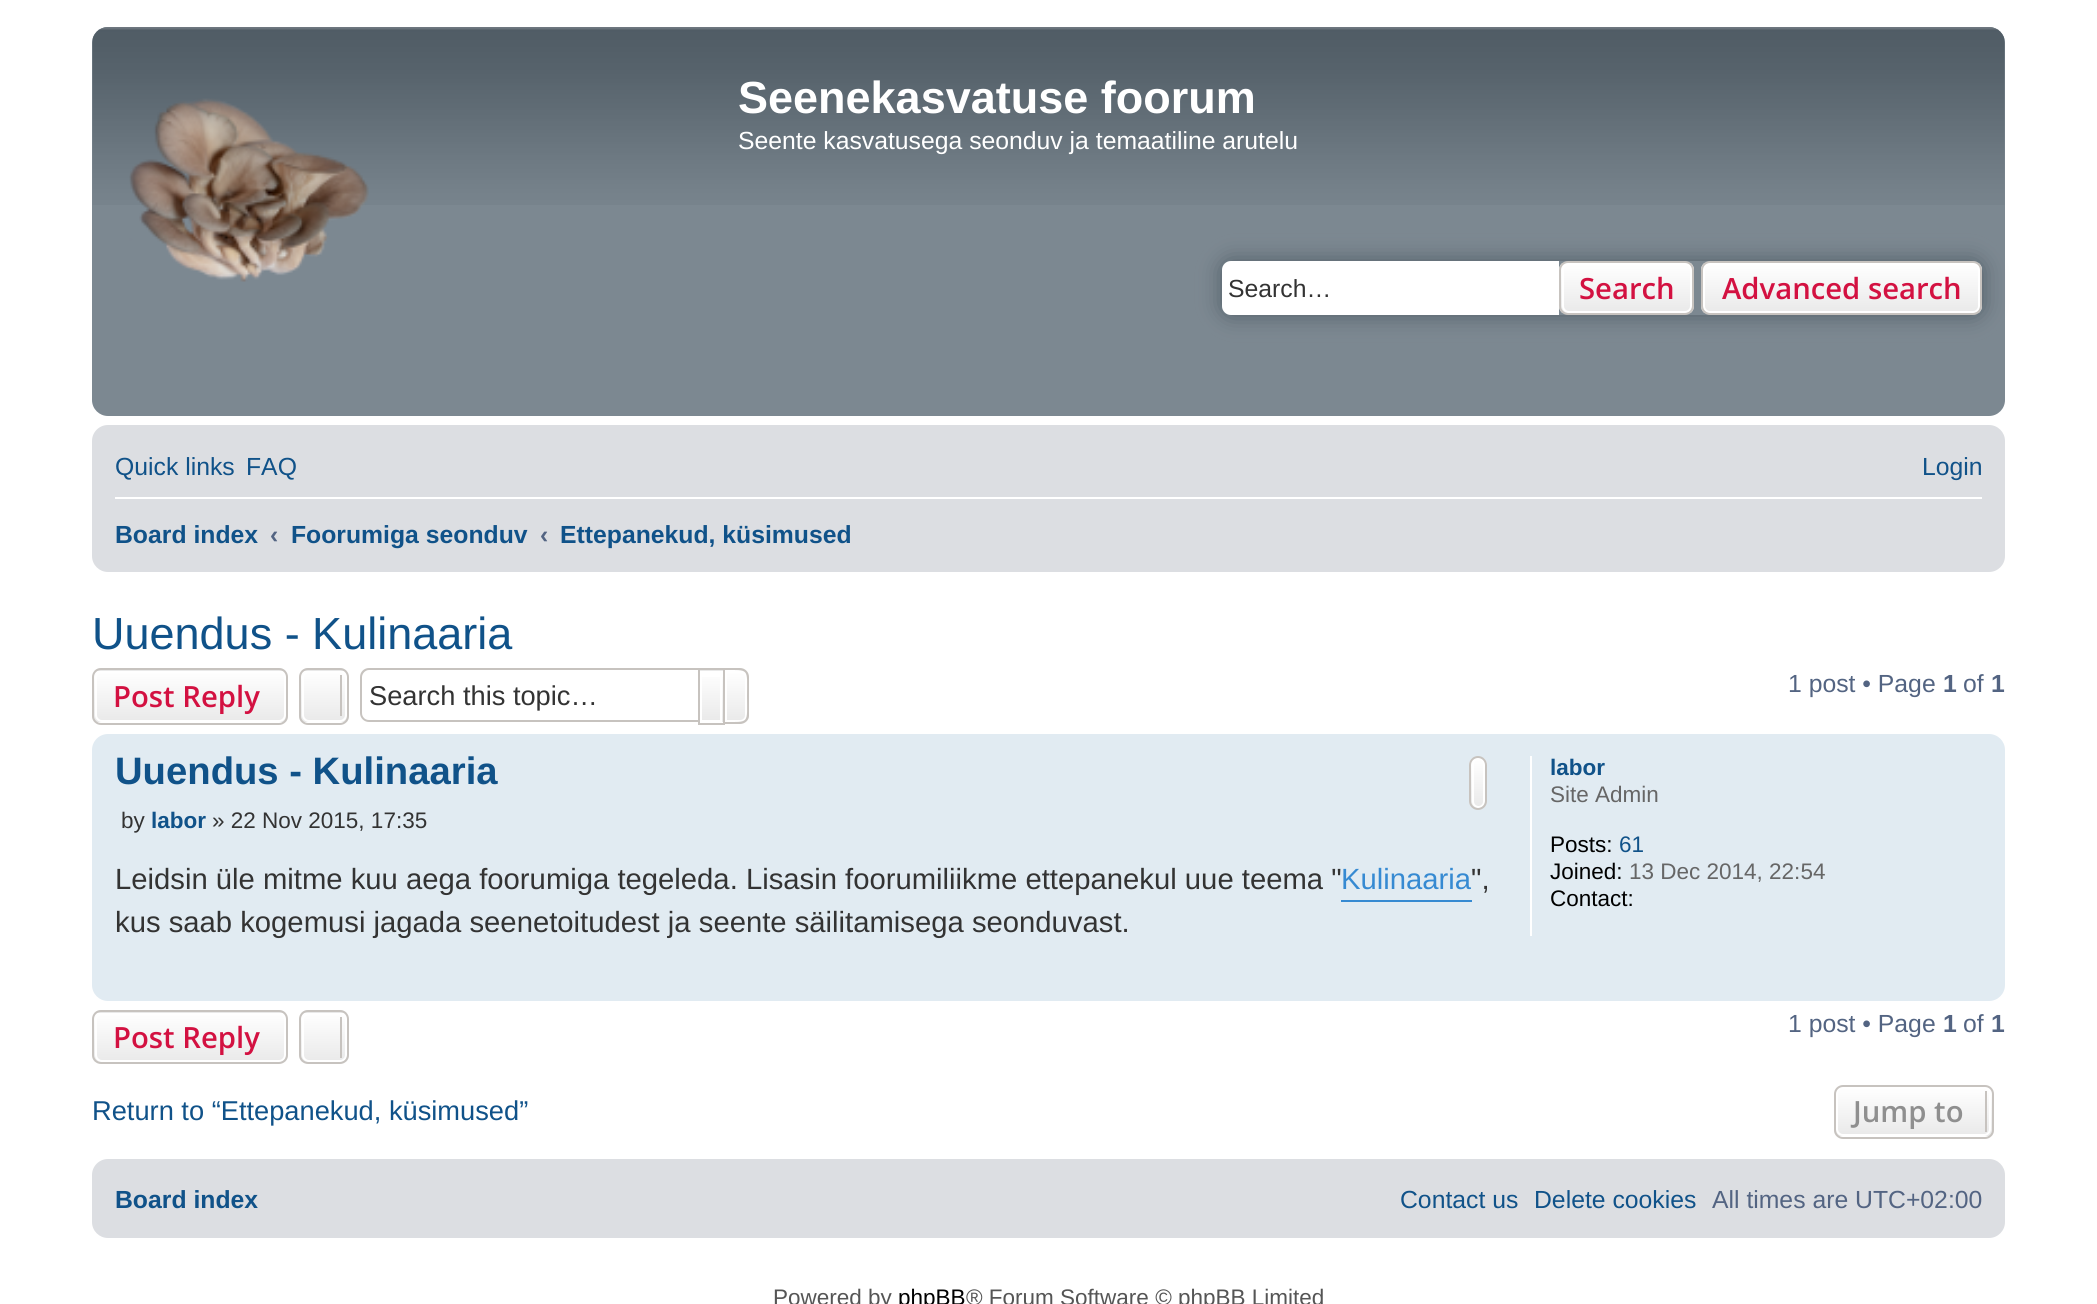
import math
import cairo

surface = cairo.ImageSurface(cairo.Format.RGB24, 2097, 1304)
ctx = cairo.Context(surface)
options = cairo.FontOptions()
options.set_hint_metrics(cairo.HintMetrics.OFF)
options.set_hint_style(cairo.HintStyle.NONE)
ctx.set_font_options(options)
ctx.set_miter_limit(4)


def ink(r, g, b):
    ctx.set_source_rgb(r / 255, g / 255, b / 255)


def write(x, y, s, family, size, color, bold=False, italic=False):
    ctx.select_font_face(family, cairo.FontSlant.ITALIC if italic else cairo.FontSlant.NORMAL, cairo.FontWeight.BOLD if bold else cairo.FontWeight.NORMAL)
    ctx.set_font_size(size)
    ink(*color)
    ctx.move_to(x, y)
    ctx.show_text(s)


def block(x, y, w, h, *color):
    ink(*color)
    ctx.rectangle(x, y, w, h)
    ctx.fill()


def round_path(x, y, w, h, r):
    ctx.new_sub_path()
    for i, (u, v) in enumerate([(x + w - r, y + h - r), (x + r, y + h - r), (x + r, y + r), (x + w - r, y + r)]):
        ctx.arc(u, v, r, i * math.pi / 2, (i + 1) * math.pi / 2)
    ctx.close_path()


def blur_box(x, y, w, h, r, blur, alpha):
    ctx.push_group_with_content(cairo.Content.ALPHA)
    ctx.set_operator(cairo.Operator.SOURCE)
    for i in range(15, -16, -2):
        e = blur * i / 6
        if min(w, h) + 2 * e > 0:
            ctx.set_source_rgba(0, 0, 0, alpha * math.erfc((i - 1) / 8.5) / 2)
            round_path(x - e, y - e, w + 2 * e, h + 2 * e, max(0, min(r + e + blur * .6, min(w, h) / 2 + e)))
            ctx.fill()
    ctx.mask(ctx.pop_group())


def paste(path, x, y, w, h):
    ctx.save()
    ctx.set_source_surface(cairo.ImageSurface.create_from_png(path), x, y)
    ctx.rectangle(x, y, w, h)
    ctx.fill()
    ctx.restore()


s1 = dict(family="Liberation Sans", size=45, color=(255, 255, 255), bold=True)
s2 = dict(family="Liberation Sans", size=24.75, color=(255, 255, 255))
s3 = dict(family="Liberation Sans", size=24.75, color=(51, 51, 51))
s4 = dict(family="Open Sans SemiBold", size=29.25, color=(211, 17, 65))
s5 = dict(family="Liberation Sans", size=24.75, color=(16, 82, 137))
s6 = dict(family="Liberation Sans", size=24.75, color=(16, 82, 137), bold=True)
s7 = dict(family="Liberation Sans", size=24.75, color=(83, 100, 130), bold=True)
s8 = dict(family="Liberation Sans", size=45, color=(16, 82, 137))
s9 = dict(family="Liberation Sans", size=27.25, color=(51, 51, 51))
s10 = dict(family="Liberation Sans", size=24.75, color=(83, 100, 130))
s11 = dict(family="Liberation Sans", size=38.25, color=(16, 82, 137), bold=True)
s12 = dict(family="Liberation Sans", size=22.5, color=(51, 51, 51))
s13 = dict(family="Liberation Sans", size=22.5, color=(16, 82, 137), bold=True)
s14 = dict(family="Liberation Sans", size=29.25, color=(51, 51, 51))
s15 = dict(family="Liberation Sans", size=29.25, color=(54, 138, 210))
s16 = dict(family="Liberation Sans", size=22.5, color=(102, 102, 102))
s17 = dict(family="Liberation Sans", size=22.5, color=(0, 0, 0))
s18 = dict(family="Liberation Sans", size=22.5, color=(16, 82, 137))
s19 = dict(family="Liberation Sans", size=27.25, color=(16, 82, 137))
s20 = dict(family="Open Sans SemiBold", size=29.25, color=(143, 143, 143))
s21 = dict(family="Liberation Sans", size=22.5, color=(85, 85, 85))

ink(255, 255, 255)
ctx.paint()
ink(124, 136, 145)
round_path(92, 27, 1913, 389, 16)
ctx.fill()
paste("pic1.png", 92, 27, 1913, 178)
paste("pic2.png", 129, 98, 240, 184)
write(738, 113, "Seenekasvatuse foorum", **s1)
write(738, 149, "Seente kasvatusega seonduv ja temaatiline arutelu", **s2)
ctx.save()
ctx.set_fill_rule(cairo.FillRule.EVEN_ODD)
ctx.new_path()
ctx.move_to(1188, 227)
ctx.line_to(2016, 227)
ctx.line_to(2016, 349)
ctx.line_to(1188, 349)
ctx.close_path()
ctx.move_to(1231, 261)
ctx.line_to(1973, 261)
ctx.curve_to(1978, 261, 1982, 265, 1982, 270)
ctx.line_to(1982, 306)
ctx.curve_to(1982, 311, 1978, 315, 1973, 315)
ctx.line_to(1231, 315)
ctx.curve_to(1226, 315, 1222, 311, 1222, 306)
ctx.line_to(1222, 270)
ctx.curve_to(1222, 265, 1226, 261, 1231, 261)
ctx.close_path()
ctx.clip()
ink(80, 92, 101)
blur_box(1222, 261, 760, 54, 9, 11, 1)
ctx.restore()
ctx.new_path()
ctx.move_to(1231, 261)
ctx.line_to(1559, 261)
ctx.line_to(1559, 315)
ctx.line_to(1231, 315)
ctx.curve_to(1226, 315, 1222, 311, 1222, 306)
ctx.line_to(1222, 270)
ctx.curve_to(1222, 265, 1226, 261, 1231, 261)
ctx.close_path()
ctx.fill()
write(1228, 297, "Search…", **s3)
ctx.save()
round_path(1559, 261, 135, 54, 9)
ctx.clip()
gradient = cairo.LinearGradient(1627, 263, 1627, 313)
gradient.add_color_stop_rgba(0, 1, 1, 1, 1)
gradient.add_color_stop_rgba(1, 0.914, 0.914, 0.914, 1)
ctx.set_source(gradient)
ctx.rectangle(1559, 263, 135, 50)
ctx.fill()
ctx.restore()
round_path(1563, 264, 128, 48, 6)
ink(255, 255, 255)
ctx.stroke()
round_path(1560, 262, 133, 52, 8)
ink(199, 195, 191)
ctx.stroke()
write(1579, 299, "Search", **s4)
ctx.save()
round_path(1701, 261, 281, 54, 9)
ctx.clip()
gradient = cairo.LinearGradient(1842, 263, 1842, 313)
gradient.add_color_stop_rgba(0, 1, 1, 1, 1)
gradient.add_color_stop_rgba(1, 0.914, 0.914, 0.914, 1)
ctx.set_source(gradient)
ctx.rectangle(1701, 263, 281, 50)
ctx.fill()
ctx.restore()
round_path(1704, 264, 275, 48, 6)
ink(255, 255, 255)
ctx.stroke()
round_path(1702, 262, 279, 52, 8)
ink(199, 195, 191)
ctx.stroke()
write(1722, 299, "Advanced search", **s4)
ink(220, 222, 226)
round_path(92, 425, 1913, 147, 16)
ctx.fill()
write(115, 475, "Quick links", **s5)
write(246, 475, "FAQ", **s5)
write(1922, 475, "Login", **s5)
block(115, 497, 1867, 2, 255, 255, 255)
write(115, 543, "Board index", **s6)
write(270, 543, "‹", **s7)
write(291, 543, "Foorumiga seonduv", **s6)
write(540, 543, "‹", **s7)
write(560, 543, "Ettepanekud, küsimused", **s6)
write(92, 649, "Uuendus - Kulinaaria", **s8)
ctx.save()
round_path(92, 668, 196, 57, 9)
ctx.clip()
gradient = cairo.LinearGradient(190, 619, 190, 671)
gradient.add_color_stop_rgba(0, 1, 1, 1, 1)
gradient.add_color_stop_rgba(1, 0.914, 0.914, 0.914, 1)
ctx.set_source(gradient)
ctx.rectangle(92, 668, 196, 3)
ctx.fill()
gradient = cairo.LinearGradient(190, 671, 190, 722)
gradient.add_color_stop_rgba(0, 1, 1, 1, 1)
gradient.add_color_stop_rgba(1, 0.914, 0.914, 0.914, 1)
ctx.set_source(gradient)
ctx.rectangle(92, 671, 196, 51)
ctx.fill()
ctx.restore()
round_path(96, 672, 189, 49, 6)
ink(255, 255, 255)
ctx.stroke()
round_path(93, 669, 194, 55, 8)
ink(199, 195, 191)
ctx.stroke()
write(113, 707, "Post Reply", **s4)
ctx.save()
round_path(299, 668, 50, 57, 9)
ctx.clip()
gradient = cairo.LinearGradient(324, 619, 324, 671)
gradient.add_color_stop_rgba(0, 1, 1, 1, 1)
gradient.add_color_stop_rgba(1, 0.914, 0.914, 0.914, 1)
ctx.set_source(gradient)
ctx.rectangle(299, 668, 50, 3)
ctx.fill()
gradient = cairo.LinearGradient(324, 671, 324, 722)
gradient.add_color_stop_rgba(0, 1, 1, 1, 1)
gradient.add_color_stop_rgba(1, 0.914, 0.914, 0.914, 1)
ctx.set_source(gradient)
ctx.rectangle(299, 671, 50, 51)
ctx.fill()
ctx.restore()
round_path(303, 672, 43, 49, 6)
ink(255, 255, 255)
ctx.stroke()
round_path(300, 669, 48, 55, 8)
ink(199, 195, 191)
ctx.stroke()
block(340, 675, 2, 41, 199, 195, 191)
ctx.set_fill_rule(cairo.FillRule.EVEN_ODD)
ctx.new_path()
ctx.move_to(369, 668)
ctx.line_to(698, 668)
ctx.line_to(698, 722)
ctx.line_to(369, 722)
ctx.curve_to(364, 722, 360, 718, 360, 713)
ctx.line_to(360, 677)
ctx.curve_to(360, 672, 364, 668, 369, 668)
ctx.close_path()
ctx.move_to(369, 670)
ctx.line_to(698, 670)
ctx.line_to(698, 720)
ctx.line_to(369, 720)
ctx.curve_to(365, 720, 362, 717, 362, 713)
ctx.line_to(362, 677)
ctx.curve_to(362, 674, 365, 670, 369, 670)
ctx.close_path()
ctx.fill()
write(369, 705, "Search this topic…", **s9)
block(700, 670, 23, 1, 233, 233, 233)
gradient = cairo.LinearGradient(711, 671, 711, 722)
gradient.add_color_stop_rgba(0, 1, 1, 1, 1)
gradient.add_color_stop_rgba(1, 0.914, 0.914, 0.914, 1)
ctx.set_source(gradient)
ctx.rectangle(702, 677, 21, 45)
ctx.fill()
ctx.rectangle(701, 672, 20, 49)
ink(255, 255, 255)
ctx.stroke()
ctx.rectangle(699, 669, 25, 55)
ink(199, 195, 191)
ctx.stroke()
gradient = cairo.LinearGradient(736, 671, 736, 722)
gradient.add_color_stop_rgba(0, 1, 1, 1, 1)
gradient.add_color_stop_rgba(1, 0.914, 0.914, 0.914, 1)
ctx.set_source(gradient)
ctx.new_path()
ctx.move_to(726, 672)
ctx.line_to(740, 672)
ctx.curve_to(743.5, 672, 746, 674.5, 746, 678)
ctx.line_to(746, 715)
ctx.curve_to(746, 718.5, 743.5, 721, 740, 721)
ctx.line_to(726, 721)
ctx.close_path()
ctx.fill_preserve()
ink(255, 255, 255)
ctx.stroke()
ink(199, 195, 191)
ctx.new_path()
ctx.move_to(724, 668)
ctx.line_to(740, 668)
ctx.curve_to(745, 668, 749, 672, 749, 677)
ctx.line_to(749, 716)
ctx.curve_to(749, 720, 745, 724, 740, 724)
ctx.line_to(724, 724)
ctx.close_path()
ctx.move_to(724, 670)
ctx.curve_to(750, 670, 747, 668, 747, 696)
ctx.curve_to(747, 724, 750, 722, 724, 722)
ctx.close_path()
ctx.fill()
write(1788, 692, "1 post • Page", **s10)
write(1943, 692, "1", **s7)
write(1963, 692, "of", **s10)
write(1991, 692, "1", **s7)
ink(225, 235, 242)
round_path(92, 734, 1913, 267, 16)
ctx.fill()
write(115, 784, "Uuendus - Kulinaaria", **s11)
ctx.save()
ctx.set_fill_rule(cairo.FillRule.WINDING)
round_path(1469, 756, 18, 54, 9)
ctx.clip()
gradient = cairo.LinearGradient(1478, 758, 1478, 808)
gradient.add_color_stop_rgba(0, 1, 1, 1, 1)
gradient.add_color_stop_rgba(1, 0.914, 0.914, 0.914, 1)
ctx.set_source(gradient)
ctx.rectangle(1469, 758, 18, 50)
ctx.fill()
ctx.restore()
round_path(1473, 759, 11, 48, 5.5)
ink(255, 255, 255)
ctx.stroke()
round_path(1470, 757, 16, 52, 8)
ink(199, 195, 191)
ctx.stroke()
write(121, 828, "by", **s12)
write(151, 828, "labor", **s13)
write(212, 828, "» 22 Nov 2015, 17:35", **s12)
write(115, 889, "Leidsin üle mitme kuu aega foorumiga tegeleda. Lisasin foorumiliikme ettepanekul uue teema \"", **s14)
block(1341, 900, 131, 2, 54, 138, 210)
write(1341, 889, "Kulinaaria", **s15)
write(1471, 889, "\",", **s14)
write(115, 932, "kus saab kogemusi jagada seenetoitudest ja seente säilitamisega seonduvast.", **s14)
block(1530, 756, 2, 180, 255, 255, 255)
write(1550, 775, "labor", **s13)
write(1550, 802, "Site Admin", **s16)
write(1550, 852, "Posts:", **s17)
write(1619, 852, "61", **s18)
write(1550, 879, "Joined:", **s17)
write(1629, 879, "13 Dec 2014, 22:54", **s16)
write(1550, 906, "Contact:", **s17)
ctx.save()
ctx.set_fill_rule(cairo.FillRule.WINDING)
round_path(92, 1010, 196, 54, 9)
ctx.clip()
gradient = cairo.LinearGradient(190, 963, 190, 1013)
gradient.add_color_stop_rgba(0, 1, 1, 1, 1)
gradient.add_color_stop_rgba(1, 0.914, 0.914, 0.914, 1)
ctx.set_source(gradient)
ctx.rectangle(92, 1010, 196, 3)
ctx.fill()
gradient = cairo.LinearGradient(190, 1013, 190, 1062)
gradient.add_color_stop_rgba(0, 1, 1, 1, 1)
gradient.add_color_stop_rgba(1, 0.914, 0.914, 0.914, 1)
ctx.set_source(gradient)
ctx.rectangle(92, 1013, 196, 49)
ctx.fill()
ctx.restore()
round_path(96, 1014, 189, 47, 6)
ink(255, 255, 255)
ctx.stroke()
round_path(93, 1011, 194, 52, 8)
ink(199, 195, 191)
ctx.stroke()
write(113, 1048, "Post Reply", **s4)
ctx.save()
ctx.set_fill_rule(cairo.FillRule.WINDING)
round_path(299, 1010, 50, 54, 9)
ctx.clip()
gradient = cairo.LinearGradient(324, 963, 324, 1013)
gradient.add_color_stop_rgba(0, 1, 1, 1, 1)
gradient.add_color_stop_rgba(1, 0.914, 0.914, 0.914, 1)
ctx.set_source(gradient)
ctx.rectangle(299, 1010, 50, 3)
ctx.fill()
gradient = cairo.LinearGradient(324, 1013, 324, 1062)
gradient.add_color_stop_rgba(0, 1, 1, 1, 1)
gradient.add_color_stop_rgba(1, 0.914, 0.914, 0.914, 1)
ctx.set_source(gradient)
ctx.rectangle(299, 1013, 50, 49)
ctx.fill()
ctx.restore()
round_path(303, 1014, 43, 47, 6)
ink(255, 255, 255)
ctx.stroke()
round_path(300, 1011, 48, 52, 8)
ink(199, 195, 191)
ctx.stroke()
block(340, 1017, 2, 41, 199, 195, 191)
write(1788, 1032, "1 post • Page", **s10)
write(1943, 1032, "1", **s7)
write(1963, 1032, "of", **s10)
write(1991, 1032, "1", **s7)
write(92, 1120, "Return to “Ettepanekud, küsimused”", **s19)
ctx.save()
ctx.set_fill_rule(cairo.FillRule.WINDING)
round_path(1834, 1085, 160, 54, 9)
ctx.clip()
gradient = cairo.LinearGradient(1914, 1087, 1914, 1136)
gradient.add_color_stop_rgba(0, 1, 1, 1, 1)
gradient.add_color_stop_rgba(1, 0.914, 0.914, 0.914, 1)
ctx.set_source(gradient)
ctx.rectangle(1834, 1087, 160, 49)
ctx.fill()
ctx.restore()
round_path(1837, 1088, 153, 47, 6)
ink(255, 255, 255)
ctx.stroke()
round_path(1835, 1086, 158, 52, 8)
ink(199, 195, 191)
ctx.stroke()
write(1853, 1122, "Jump to", **s20)
block(1985, 1091, 2, 41, 199, 195, 191)
ink(220, 222, 226)
round_path(92, 1159, 1913, 79, 16)
ctx.fill()
write(115, 1208, "Board index", **s6)
write(1400, 1208, "Contact us", **s5)
write(1534, 1208, "Delete cookies", **s5)
write(1712, 1208, "All times are UTC+02:00", **s10)
write(773, 1305, "Powered by", **s21)
write(898, 1305, "phpBB", **s17)
write(966, 1305, "® Forum Software © phpBB Limited", **s21)
surface.write_to_png("screenshot.png")
